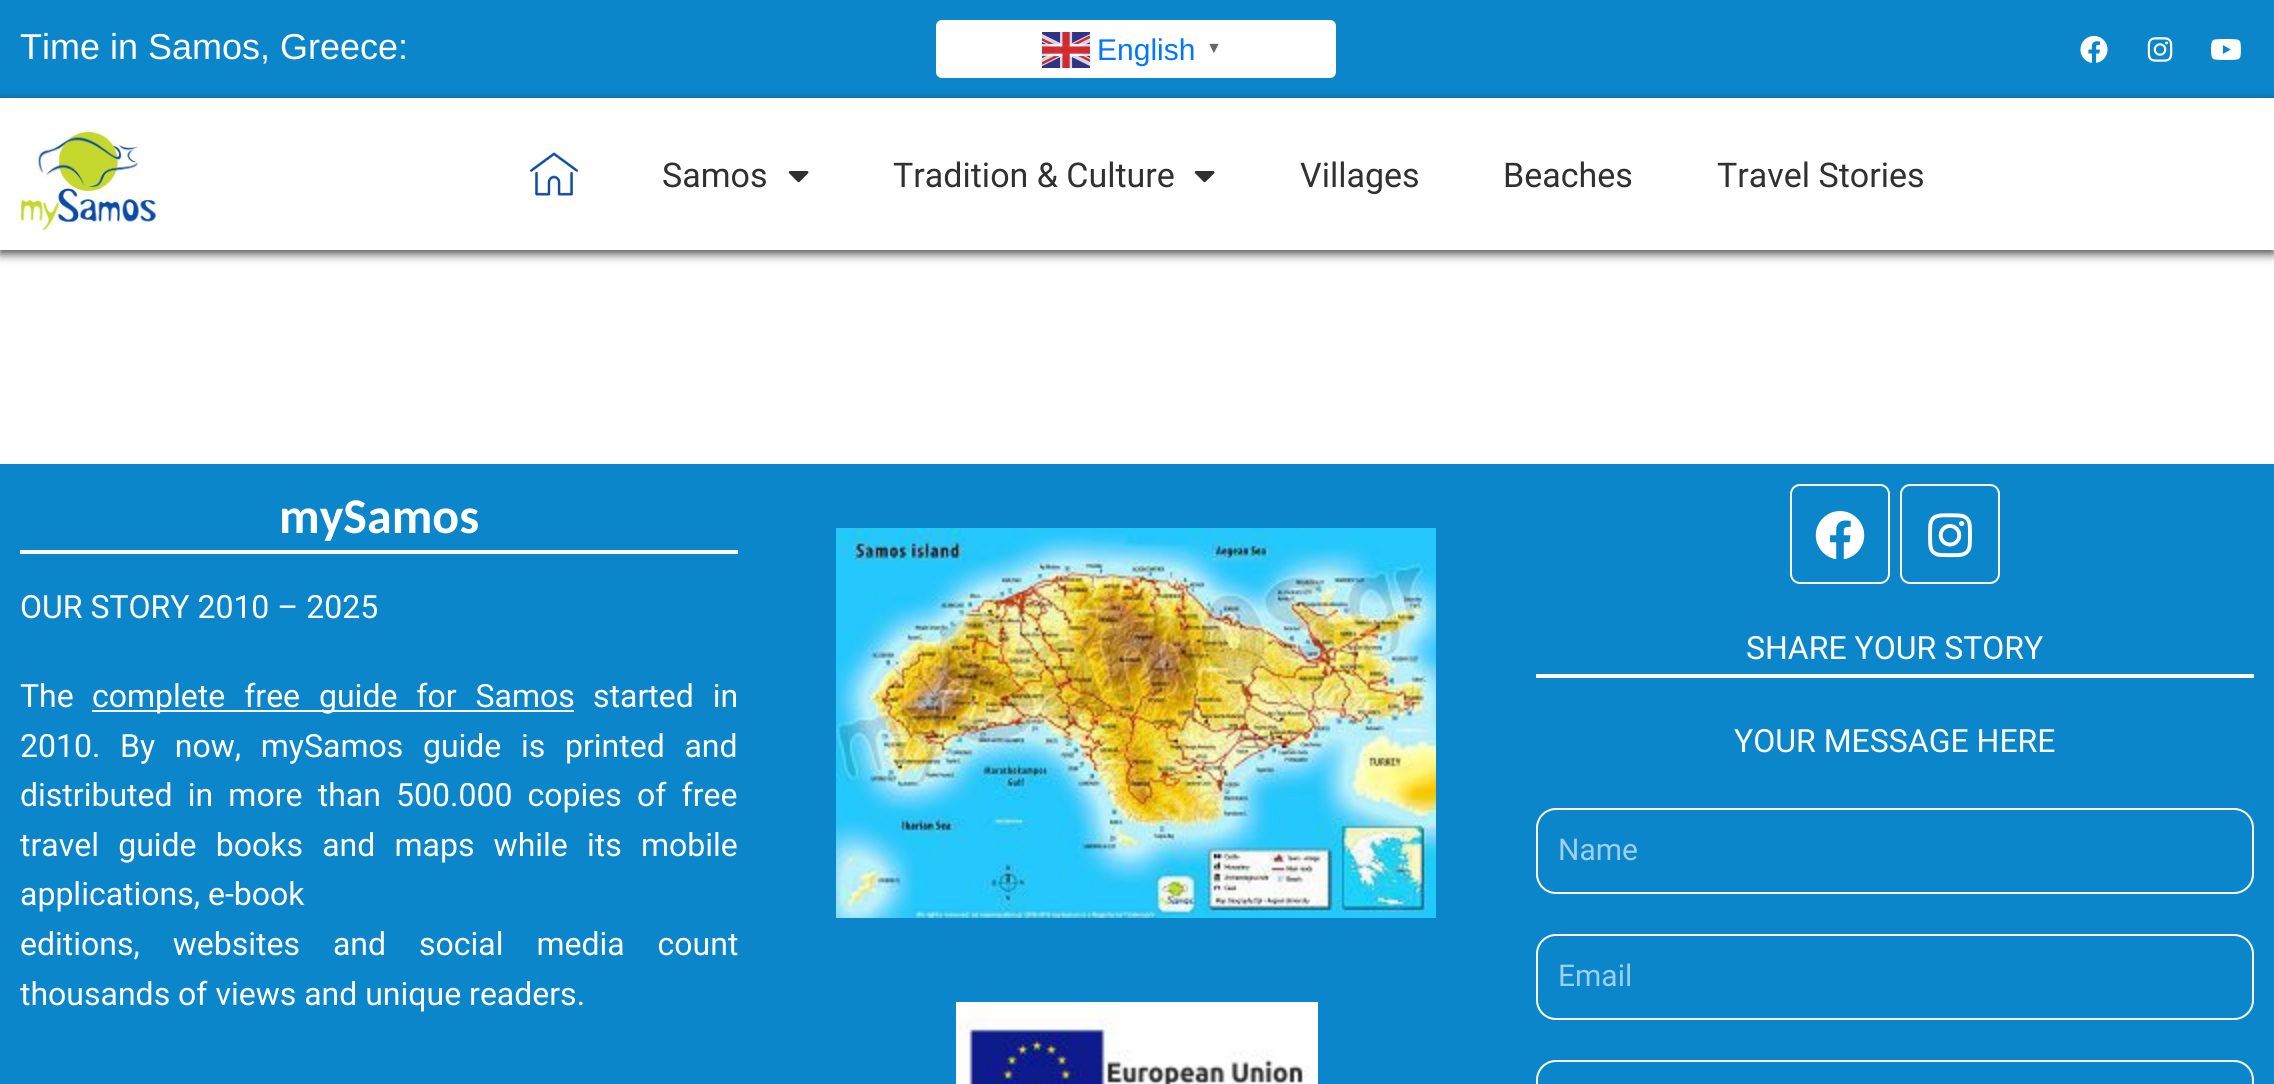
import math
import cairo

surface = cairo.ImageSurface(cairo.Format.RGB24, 2274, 1084)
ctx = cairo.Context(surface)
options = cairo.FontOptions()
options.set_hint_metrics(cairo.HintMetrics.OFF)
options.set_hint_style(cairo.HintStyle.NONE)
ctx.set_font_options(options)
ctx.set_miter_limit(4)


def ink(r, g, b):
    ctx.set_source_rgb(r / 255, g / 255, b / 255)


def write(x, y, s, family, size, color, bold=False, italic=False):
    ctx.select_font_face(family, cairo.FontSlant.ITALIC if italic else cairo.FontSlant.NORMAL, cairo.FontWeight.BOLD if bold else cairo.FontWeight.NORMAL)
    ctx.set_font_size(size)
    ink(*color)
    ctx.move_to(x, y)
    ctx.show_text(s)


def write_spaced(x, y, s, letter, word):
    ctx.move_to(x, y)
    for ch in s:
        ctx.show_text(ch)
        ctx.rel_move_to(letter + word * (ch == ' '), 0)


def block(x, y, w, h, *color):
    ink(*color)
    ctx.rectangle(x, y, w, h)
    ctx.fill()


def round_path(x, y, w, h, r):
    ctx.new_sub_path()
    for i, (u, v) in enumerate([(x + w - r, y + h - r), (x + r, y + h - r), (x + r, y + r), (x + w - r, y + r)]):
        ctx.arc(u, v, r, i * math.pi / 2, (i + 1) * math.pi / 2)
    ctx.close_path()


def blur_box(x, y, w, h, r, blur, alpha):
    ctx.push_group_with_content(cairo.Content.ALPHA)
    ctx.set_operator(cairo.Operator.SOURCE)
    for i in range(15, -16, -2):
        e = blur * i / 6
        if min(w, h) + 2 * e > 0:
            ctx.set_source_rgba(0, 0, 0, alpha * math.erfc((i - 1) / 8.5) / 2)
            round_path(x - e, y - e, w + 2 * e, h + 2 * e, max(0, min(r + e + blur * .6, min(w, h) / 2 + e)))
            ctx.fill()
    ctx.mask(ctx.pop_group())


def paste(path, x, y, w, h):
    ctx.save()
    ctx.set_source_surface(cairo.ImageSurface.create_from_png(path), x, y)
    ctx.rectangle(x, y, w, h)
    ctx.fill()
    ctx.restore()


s1 = dict(family="Liberation Sans", size=36, color=(255, 255, 255))
s2 = dict(family="Liberation Sans", size=30, color=(0, 119, 255))
s3 = dict(family="Liberation Sans", size=16, color=(102, 102, 102), bold=True)
s4 = dict(family="Roboto", size=34, color=(48, 48, 48))
s5 = dict(family="Carlito", size=50, color=(255, 255, 255), bold=True)
s6 = dict(family="Roboto", size=32, color=(255, 255, 255))
s7 = dict(family="Roboto", size=30, color=(157, 207, 234))

ink(255, 255, 255)
ctx.paint()
block(0, 0, 2274, 98, 11, 134, 202)
write(20, 59, "Time in Samos, Greece:", **s1)
round_path(936, 20, 400, 58, 6)
ctx.fill()
paste("pic1.png", 1042, 32, 48, 36)
write(1097, 60, "English", **s2)
write(1206, 53, "▼", **s3)
paste("pic2.png", 2080, 35, 28, 28)
paste("pic3.png", 2147, 37, 26, 25)
paste("pic4.png", 2211, 39, 30, 21)
ctx.save()
ctx.set_fill_rule(cairo.FillRule.EVEN_ODD)
ctx.new_path()
ctx.move_to(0, 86)
ctx.line_to(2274, 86)
ctx.line_to(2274, 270)
ctx.line_to(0, 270)
ctx.close_path()
ctx.move_to(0, 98)
ctx.line_to(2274, 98)
ctx.line_to(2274, 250)
ctx.line_to(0, 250)
ctx.close_path()
ctx.clip()
ink(0, 0, 0)
blur_box(0, 102, 2274, 152, 0, 5, 0.7)
ctx.restore()
paste("pic5.png", 20, 132, 140, 98)
paste("pic6.png", 530, 152, 48, 44)
write(662, 187, "Samos", **s4)
paste("pic7.png", 788, 171, 21, 12)
write(893, 187, "Tradition & Culture", **s4)
paste("pic7.png", 1194, 171, 21, 12)
write(1300, 187, "Villages", **s4)
write(1503, 187, "Beaches", **s4)
write(1717, 187, "Travel Stories", **s4)
block(0, 464, 2274, 620, 11, 134, 202)
block(20, 550, 718, 4, 255, 255, 255)
write(279, 533, "mySamos", **s5)
write(20, 618, "OUR STORY 2010 – 2025", **s6)
write(20, 707, "The", **s6)
block(92, 710, 482, 2, 255, 255, 255)
write_spaced(92, 707, "complete free guide for Samos", 0, 11)
write_spaced(593, 707, "started in", 0, 11)
write_spaced(20, 757, "2010. By now, mySamos guide is printed and", 0, 11.75)
write_spaced(20, 806, "distributed in more than 500.000 copies of free", 0, 7.25)
write_spaced(20, 856, "travel guide books and maps while its mobile", 0, 11.25)
write(20, 905, "applications, e-book", **s6)
write_spaced(20, 955, "editions, websites and social media count", 0, 25)
write(20, 1005, "thousands of views and unique readers.", **s6)
paste("pic8.png", 836, 528, 600, 390)
paste("pic9.png", 956, 1002, 362, 82)
round_path(1791, 485, 98, 98, 9)
ctx.stroke()
paste("pic10.png", 1815, 511, 50, 49)
round_path(1901, 485, 98, 98, 9)
ctx.stroke()
paste("pic11.png", 1928, 513, 44, 45)
block(1536, 674, 718, 4, 255, 255, 255)
write(1746, 659, "SHARE YOUR STORY", **s6)
write(1734, 752, "YOUR MESSAGE HERE", **s6)
round_path(1537, 809, 716, 84, 19)
ctx.stroke()
write(1558, 860, "Name", **s7)
round_path(1537, 935, 716, 84, 19)
ink(255, 255, 255)
ctx.stroke()
write(1558, 986, "Email", **s7)
round_path(1537, 1061, 716, 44, 19)
ink(255, 255, 255)
ctx.stroke()
surface.write_to_png("screenshot.png")
